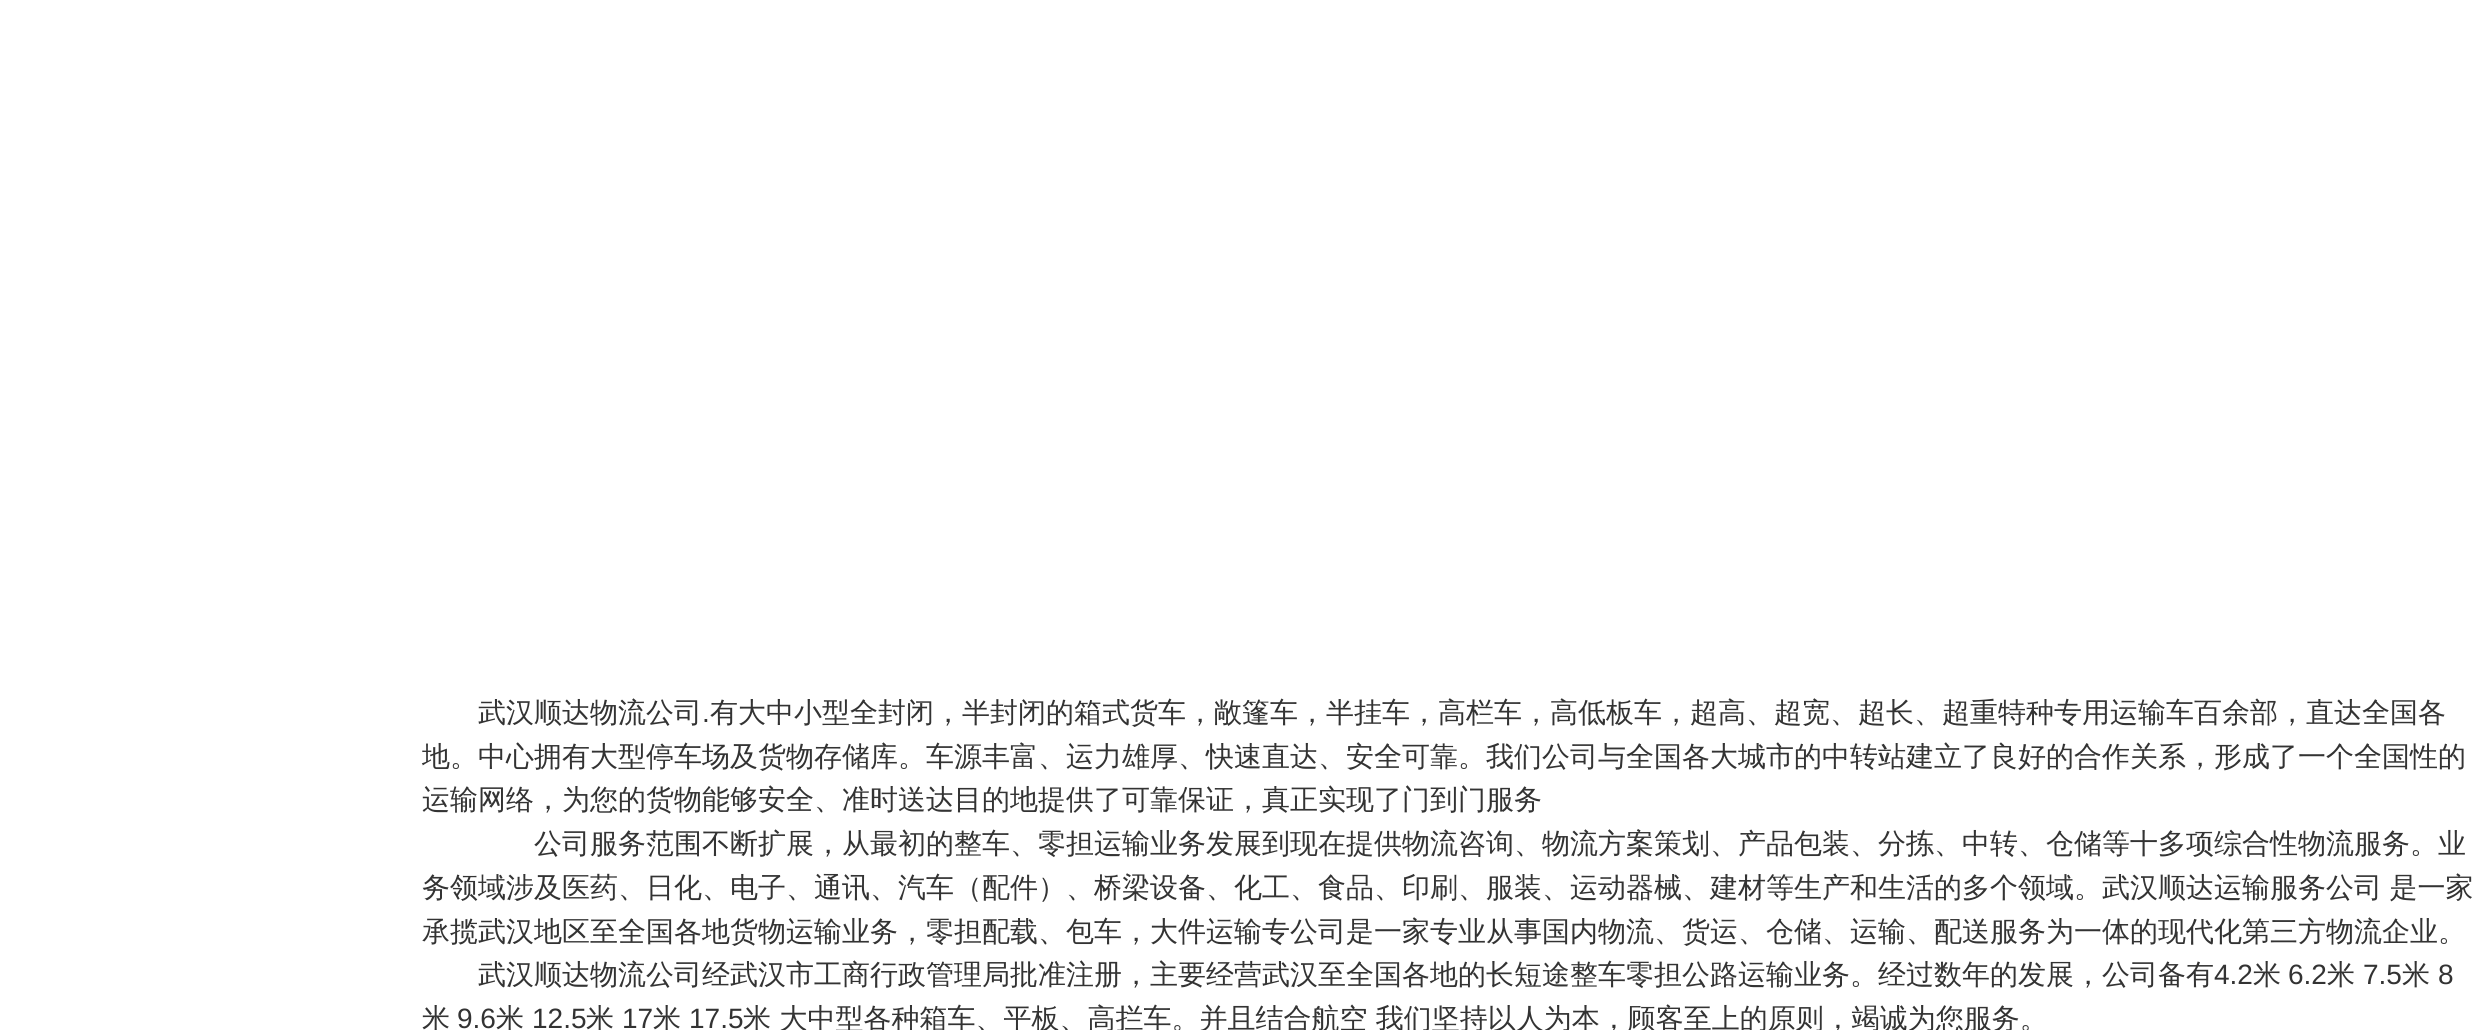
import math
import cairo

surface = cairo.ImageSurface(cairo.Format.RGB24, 2490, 1030)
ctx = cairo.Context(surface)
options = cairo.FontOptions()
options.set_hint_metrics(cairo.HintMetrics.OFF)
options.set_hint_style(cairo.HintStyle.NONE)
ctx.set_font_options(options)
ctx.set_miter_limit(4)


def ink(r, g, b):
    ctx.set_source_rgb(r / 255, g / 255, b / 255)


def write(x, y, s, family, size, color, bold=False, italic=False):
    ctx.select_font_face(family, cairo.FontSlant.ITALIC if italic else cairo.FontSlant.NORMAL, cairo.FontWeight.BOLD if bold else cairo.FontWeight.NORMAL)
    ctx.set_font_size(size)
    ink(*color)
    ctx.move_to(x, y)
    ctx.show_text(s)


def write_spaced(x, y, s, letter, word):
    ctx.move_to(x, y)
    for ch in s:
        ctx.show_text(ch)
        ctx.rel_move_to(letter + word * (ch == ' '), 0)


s1 = dict(family="WenQuanYi Zen Hei Medium", size=28, color=(51, 51, 51))
s2 = dict(family="Liberation Sans", size=28, color=(51, 51, 51))

ink(255, 255, 255)
ctx.paint()
write(478, 722, "武汉顺达物流公司", **s1)
write(702, 722, ".", **s2)
write(710, 722, "有大中小型全封闭，半封闭的箱式货车，敞篷车，半挂车，高栏车，高低板车，超高、超宽、超长、超重特种专用运输车百余部，直达全国各", **s1)
write(422, 766, "地。中心拥有大型停车场及货物存储库。车源丰富、运力雄厚、快速直达、安全可靠。我们公司与全国各大城市的中转站建立了良好的合作关系，形成了一个全国性的", **s1)
write(422, 809, "运输网络，为您的货物能够安全、准时送达目的地提供了可靠保证，真正实现了门到门服务", **s1)
write(534, 853, "公司服务范围不断扩展，从最初的整车、零担运输业务发展到现在提供物流咨询、物流方案策划、产品包装、分拣、中转、仓储等十多项综合性物流服务。业", **s1)
write_spaced(422, 897, "务领域涉及医药、日化、电子、通讯、汽车（配件）、桥梁设备、化工、食品、印刷、服装、运动器械、建材等生产和生活的多个领域。武汉顺达运输服务公司 是一家", 0, -1)
write(422, 941, "承揽武汉地区至全国各地货物运输业务，零担配载、包车，大件运输专公司是一家专业从事国内物流、货运、仓储、运输、配送服务为一体的现代化第三方物流企业。", **s1)
write(478, 984, "武汉顺达物流公司经武汉市工商行政管理局批准注册，主要经营武汉至全国各地的长短途整车零担公路运输业务。经过数年的发展，公司备有", **s1)
write(2214, 984, "4.2", **s2)
write(2253, 984, "米", **s1)
write(2288, 984, "6.2", **s2)
write(2327, 984, "米", **s1)
write(2363, 984, "7.5", **s2)
write(2402, 984, "米", **s1)
write(2438, 984, "8", **s2)
write(422, 1028, "米", **s1)
write(457, 1028, "9.6", **s2)
write(496, 1028, "米", **s1)
write(532, 1028, "12.5", **s2)
write(586, 1028, "米", **s1)
write(622, 1028, "17", **s2)
write(653, 1028, "米", **s1)
write(689, 1028, "17.5", **s2)
write(743, 1028, "米 大中型各种箱车、平板、高拦车。并且结合航空 我们坚持以人为本，顾客至上的原则，竭诚为您服务。", **s1)
surface.write_to_png("screenshot.png")
